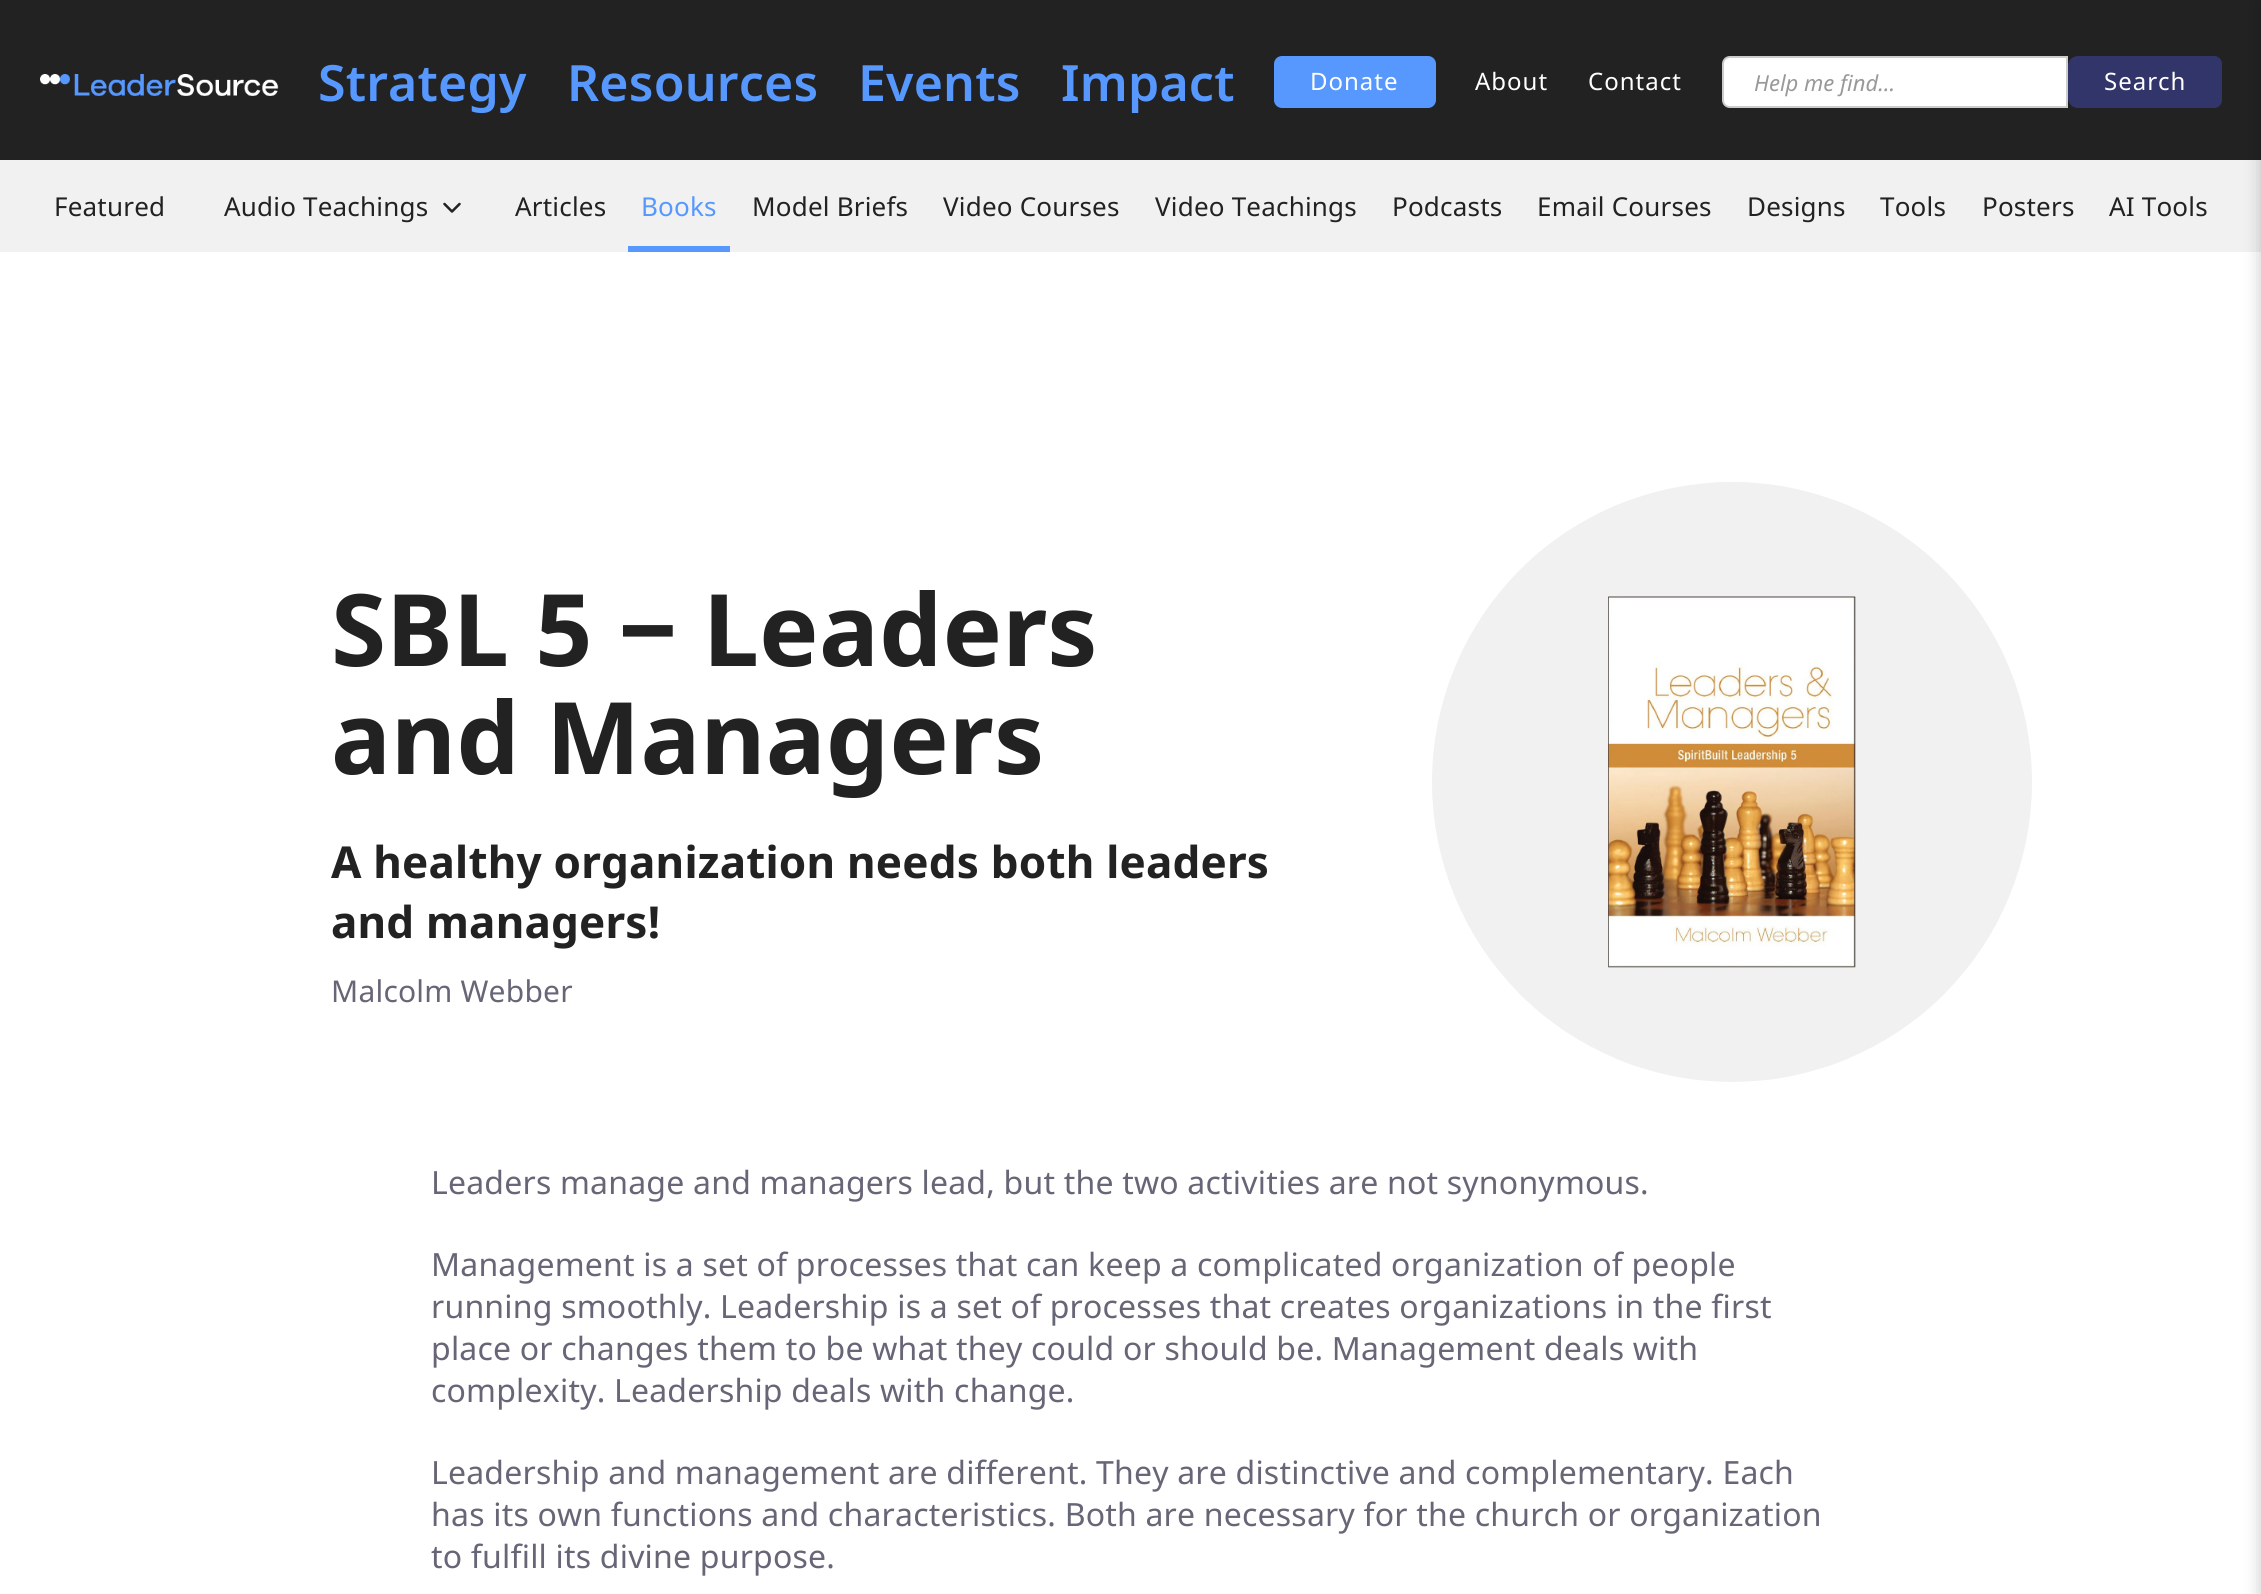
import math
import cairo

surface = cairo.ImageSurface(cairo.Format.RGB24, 2261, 1594)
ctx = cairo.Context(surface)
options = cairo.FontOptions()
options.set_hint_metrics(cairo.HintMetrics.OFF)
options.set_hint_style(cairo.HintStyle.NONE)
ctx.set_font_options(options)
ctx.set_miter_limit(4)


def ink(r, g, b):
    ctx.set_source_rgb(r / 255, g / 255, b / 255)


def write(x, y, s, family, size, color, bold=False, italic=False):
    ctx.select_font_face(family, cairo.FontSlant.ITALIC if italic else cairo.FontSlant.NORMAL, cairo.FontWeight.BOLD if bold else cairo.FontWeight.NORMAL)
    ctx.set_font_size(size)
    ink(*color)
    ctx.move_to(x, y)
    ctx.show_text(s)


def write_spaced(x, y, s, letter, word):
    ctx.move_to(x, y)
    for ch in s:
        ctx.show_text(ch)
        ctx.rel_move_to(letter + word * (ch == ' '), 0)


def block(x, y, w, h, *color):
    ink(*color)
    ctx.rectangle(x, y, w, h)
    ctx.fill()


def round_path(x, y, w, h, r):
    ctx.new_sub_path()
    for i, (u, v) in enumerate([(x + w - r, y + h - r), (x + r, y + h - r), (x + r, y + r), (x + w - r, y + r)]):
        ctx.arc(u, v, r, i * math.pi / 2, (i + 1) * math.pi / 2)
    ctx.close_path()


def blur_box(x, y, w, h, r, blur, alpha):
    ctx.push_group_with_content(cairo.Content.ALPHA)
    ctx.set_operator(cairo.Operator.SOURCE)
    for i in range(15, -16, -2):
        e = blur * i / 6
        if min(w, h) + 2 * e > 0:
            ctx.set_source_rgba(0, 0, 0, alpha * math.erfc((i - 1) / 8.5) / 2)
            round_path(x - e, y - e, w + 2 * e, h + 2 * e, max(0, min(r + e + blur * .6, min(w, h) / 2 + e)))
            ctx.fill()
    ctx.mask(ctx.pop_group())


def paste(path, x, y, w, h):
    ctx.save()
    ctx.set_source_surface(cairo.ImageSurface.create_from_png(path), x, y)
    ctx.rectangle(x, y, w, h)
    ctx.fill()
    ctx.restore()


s1 = dict(family="Noto Sans", size=22, color=(153, 153, 153), italic=True)

ink(255, 255, 255)
ctx.paint()
block(0, 0, 2261, 160, 34, 34, 34)
paste("pic1.png", 40, 74, 239, 22)
ctx.select_font_face("Noto Sans SemiBold")
ctx.set_font_size(50)
ink(87, 152, 255)
write_spaced(318, 101, "Strategy", 0.2, 0)
write_spaced(567, 101, "Resources", 0.2, 0)
write_spaced(858, 101, "Events", 0.2, 0)
write_spaced(1061, 101, "Impact", 0.2, 0)
round_path(1274, 56, 162, 52, 8)
ctx.fill()
ctx.select_font_face("Noto Sans")
ctx.set_font_size(24)
ink(255, 255, 255)
write_spaced(1310, 90, "Donate", 1, 0)
write_spaced(1475, 90, "About", 1, 0)
write_spaced(1588, 90, "Contact", 1, 0)
ctx.new_path()
ctx.move_to(1730, 57)
ctx.line_to(2067, 57)
ctx.line_to(2067, 107)
ctx.line_to(1730, 107)
ctx.curve_to(1726, 107, 1723, 104, 1723, 100)
ctx.line_to(1723, 64)
ctx.curve_to(1723, 60, 1726, 57, 1730, 57)
ctx.close_path()
ctx.fill_preserve()
ink(204, 204, 204)
ctx.stroke()
write(1754, 91, "Help me find…", **s1)
ink(50, 53, 106)
ctx.new_path()
ctx.move_to(2078, 56)
ctx.line_to(2214, 56)
ctx.curve_to(2218.5, 56, 2222, 59.5, 2222, 64)
ctx.line_to(2222, 100)
ctx.curve_to(2222, 104.5, 2218.5, 108, 2214, 108)
ctx.line_to(2078, 108)
ctx.curve_to(2072.5, 108, 2068, 103.5, 2068, 98)
ctx.line_to(2068, 66)
ctx.curve_to(2068, 60.5, 2072.5, 56, 2078, 56)
ctx.close_path()
ctx.fill()
ctx.select_font_face("Noto Sans")
ctx.set_font_size(24)
ink(255, 255, 255)
write_spaced(2104, 90, "Search", 1, 0)
block(0, 160, 2261, 92, 241, 241, 241)
ink(0, 0, 0)
blur_box(2260, 2, 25, 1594, 0, 8, 0.2)
ctx.set_font_size(26)
ink(34, 34, 34)
write_spaced(54, 216, "Featured", 0.2, 0)
write_spaced(224, 216, "Audio Teachings", 0.2, 0)
paste("pic2.png", 443, 202, 18, 11)
write_spaced(515, 216, "Articles", 0.2, 0)
block(628, 246, 102, 6, 87, 152, 255)
write_spaced(641, 216, "Books", 0.2, 0)
ink(34, 34, 34)
write_spaced(752, 216, "Model Briefs", 0.2, 0)
write_spaced(943, 216, "Video Courses", 0.2, 0)
write_spaced(1155, 216, "Video Teachings", 0.2, 0)
write_spaced(1392, 216, "Podcasts", 0.2, 0)
write_spaced(1537, 216, "Email Courses", 0.2, 0)
write_spaced(1747, 216, "Designs", 0.2, 0)
write_spaced(1880, 216, "Tools", 0.2, 0)
write_spaced(1982, 216, "Posters", 0.2, 0)
write_spaced(2109, 216, "AI Tools", 0.2, 0)
ctx.select_font_face("Noto Sans", cairo.FontSlant.NORMAL, cairo.FontWeight.BOLD)
ctx.set_font_size(100)
write_spaced(331, 666, "SBL 5 ‒ Leaders", 0.2, 0)
write_spaced(331, 774, "and Managers", 0.2, 0)
ctx.set_font_size(44)
write_spaced(331, 878, "A healthy organization needs both leaders", 0.2, 0)
write_spaced(331, 938, "and managers!", 0.2, 0)
ctx.select_font_face("Noto Sans")
ctx.set_font_size(30)
ink(102, 102, 119)
write_spaced(331, 1002, "Malcolm Webber", 0.2, 0)
paste("pic3.png", 1432, 482, 600, 600)
ctx.set_font_size(32)
write_spaced(431, 1194, "Leaders manage and managers lead, but the two activities are not synonymous.", 0.2, 0)
write_spaced(431, 1276, "Management is a set of processes that can keep a complicated organization of people", 0.2, 0)
write_spaced(431, 1318, "running smoothly. Leadership is a set of processes that creates organizations in the first", 0.2, 0)
write_spaced(431, 1360, "place or changes them to be what they could or should be. Management deals with", 0.2, 0)
write_spaced(431, 1402, "complexity. Leadership deals with change.", 0.2, 0)
write_spaced(431, 1484, "Leadership and management are different. They are distinctive and complementary. Each", 0.2, 0)
write_spaced(431, 1526, "has its own functions and characteristics. Both are necessary for the church or organization", 0.2, 0)
write_spaced(431, 1568, "to fulfill its divine purpose.", 0.2, 0)
surface.write_to_png("screenshot.png")
